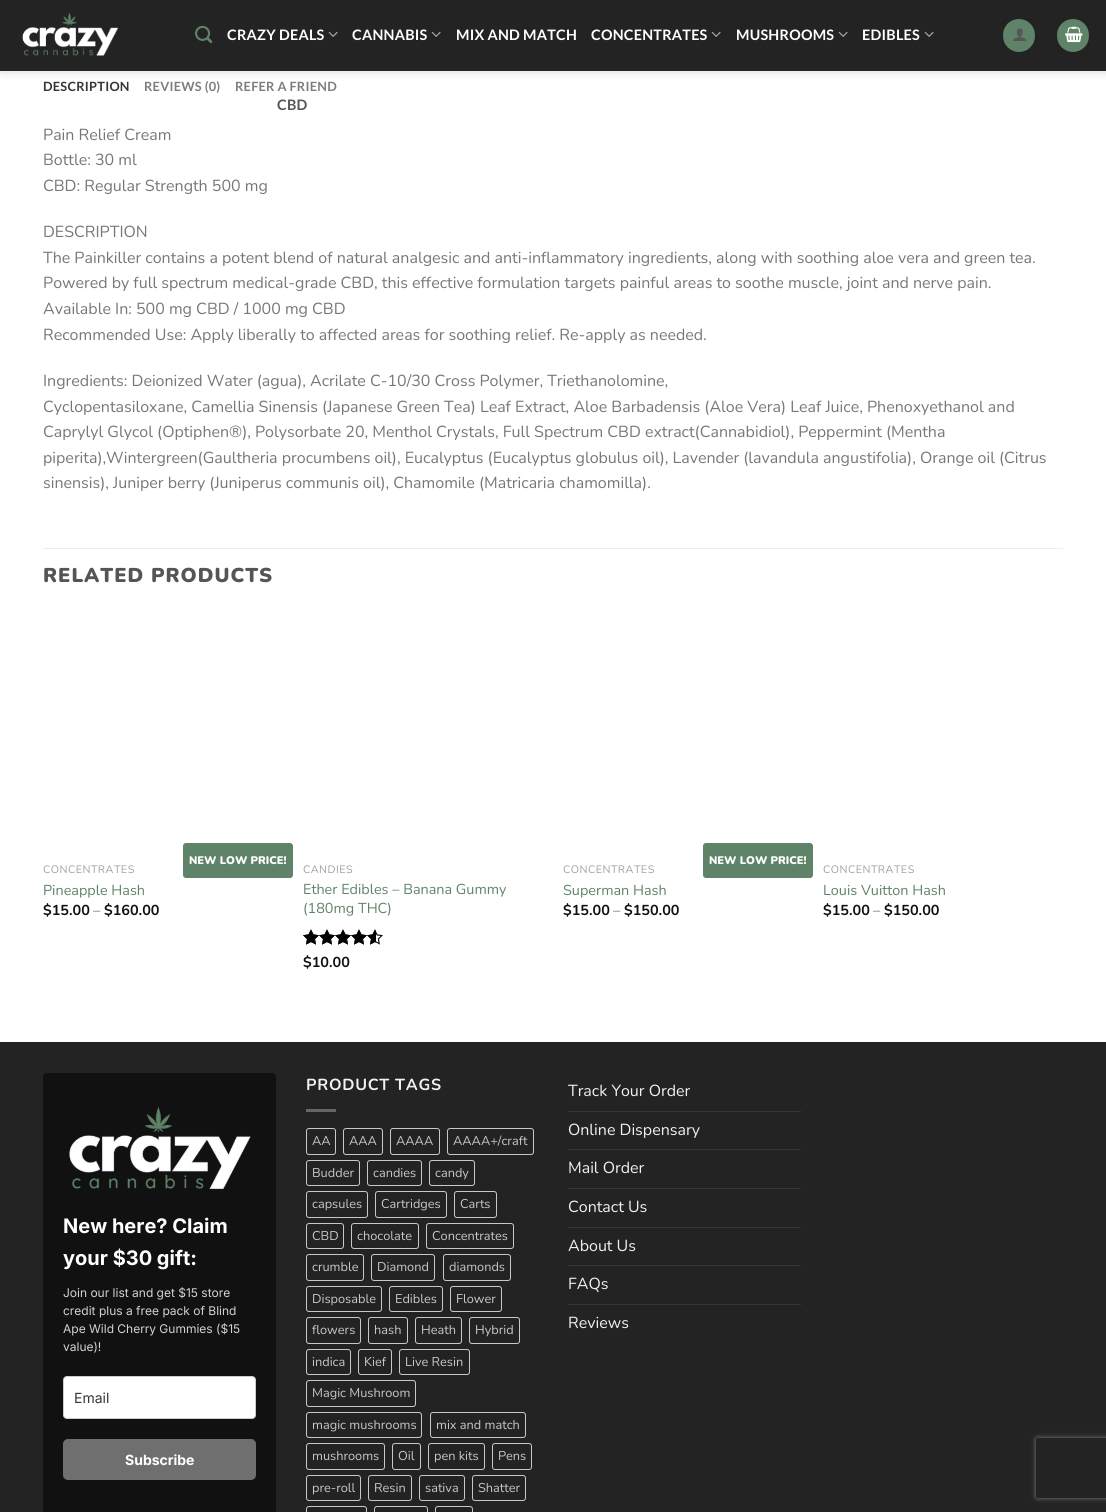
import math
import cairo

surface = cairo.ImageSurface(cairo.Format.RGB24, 1106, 1512)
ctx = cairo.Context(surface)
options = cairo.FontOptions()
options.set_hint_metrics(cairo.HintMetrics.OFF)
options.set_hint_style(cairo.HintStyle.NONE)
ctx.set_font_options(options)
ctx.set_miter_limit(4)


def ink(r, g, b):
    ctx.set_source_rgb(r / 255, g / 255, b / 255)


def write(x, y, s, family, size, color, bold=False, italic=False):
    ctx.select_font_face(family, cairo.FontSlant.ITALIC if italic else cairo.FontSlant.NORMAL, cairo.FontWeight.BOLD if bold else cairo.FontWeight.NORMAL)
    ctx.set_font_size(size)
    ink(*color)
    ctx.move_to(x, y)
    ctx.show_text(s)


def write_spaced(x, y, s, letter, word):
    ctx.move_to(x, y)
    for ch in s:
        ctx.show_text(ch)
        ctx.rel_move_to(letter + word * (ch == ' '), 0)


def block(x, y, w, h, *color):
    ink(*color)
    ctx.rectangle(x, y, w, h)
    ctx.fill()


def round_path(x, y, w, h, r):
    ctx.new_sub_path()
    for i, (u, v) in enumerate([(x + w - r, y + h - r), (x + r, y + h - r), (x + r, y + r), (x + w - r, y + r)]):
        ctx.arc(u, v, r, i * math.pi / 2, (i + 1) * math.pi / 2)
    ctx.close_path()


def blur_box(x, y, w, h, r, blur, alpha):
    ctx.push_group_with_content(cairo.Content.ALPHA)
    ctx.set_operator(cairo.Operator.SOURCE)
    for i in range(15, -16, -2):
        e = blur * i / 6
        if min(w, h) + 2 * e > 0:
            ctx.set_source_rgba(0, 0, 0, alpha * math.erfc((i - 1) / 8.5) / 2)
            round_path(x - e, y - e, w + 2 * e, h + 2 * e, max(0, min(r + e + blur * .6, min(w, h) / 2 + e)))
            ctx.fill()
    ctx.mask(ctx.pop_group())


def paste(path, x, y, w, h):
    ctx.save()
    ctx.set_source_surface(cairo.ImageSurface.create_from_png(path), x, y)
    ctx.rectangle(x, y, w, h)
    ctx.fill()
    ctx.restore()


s1 = dict(family="Nunito", size=16, color=(119, 119, 119))
s2 = dict(family="Nunito Black", size=11, color=(255, 255, 255))
s3 = dict(family="Nunito", size=14.4, color=(95, 131, 104))
s4 = dict(family="Nunito", size=14.4, color=(17, 17, 17), bold=True)
s5 = dict(family="Nunito", size=14.4, color=(119, 119, 119))
s6 = dict(family="Inter", size=20, color=(255, 255, 255), bold=True)
s7 = dict(family="Inter", size=12, color=(209, 211, 211))
s8 = dict(family="Inter", size=14, color=(54, 54, 54))
s9 = dict(family="Inter", size=14, color=(255, 255, 255), bold=True)
s10 = dict(family="Nunito", size=12.75, color=(200, 200, 200))
s11 = dict(family="Nunito", size=16, color=(241, 241, 241))

ink(255, 255, 255)
ctx.paint()
ink(0, 0, 0)
blur_box(1, 1, 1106, 71, 0, 5, 0.15)
block(0, 0, 1106, 71, 35, 35, 35)
paste("pic1.png", 22, 12, 97, 44)
paste("pic2.png", 195, 25, 18, 18)
ctx.select_font_face("Lato", cairo.FontSlant.NORMAL, cairo.FontWeight.BOLD)
ctx.set_font_size(14.4)
ink(255, 255, 255)
write_spaced(227, 40, "CRAZY DEALS", 0.25, 0)
paste("pic3.png", 328, 31, 10, 6)
write_spaced(352, 40, "CANNABIS", 0.25, 0)
paste("pic3.png", 431, 31, 10, 6)
write_spaced(456, 40, "MIX AND MATCH", 0.25, 0)
write_spaced(591, 40, "CONCENTRATES", 0.25, 0)
paste("pic3.png", 711, 31, 10, 6)
write_spaced(736, 40, "MUSHROOMS", 0.25, 0)
paste("pic3.png", 838, 31, 10, 6)
write_spaced(862, 40, "EDIBLES", 0.25, 0)
paste("pic3.png", 924, 31, 10, 6)
ink(85, 85, 85)
write_spaced(277, 110, "CBD", 0.25, 0)
ink(95, 131, 104)
round_path(1003, 19, 32, 33, 16)
ctx.fill()
ctx.rectangle(1003.5, 19.5, 31, 32)
ctx.set_source_rgba(0, 0, 0, 0.05)
ctx.set_line_width(1)
ctx.stroke()
paste("pic4.png", 1013, 28, 14, 13)
ink(95, 131, 104)
round_path(1057, 19, 32, 33, 16)
ctx.fill()
ctx.rectangle(1057.5, 19.5, 31, 32)
ctx.set_source_rgba(0, 0, 0, 0.05)
ctx.stroke()
paste("pic5.png", 1065, 26, 18, 17)
ctx.set_font_size(12.75)
ink(54, 54, 54)
write_spaced(43, 91, "DESCRIPTION", 0.25, 0)
ink(125, 125, 125)
write_spaced(144, 91, "REVIEWS (0)", 0.25, 0)
write_spaced(235, 91, "REFER A FRIEND", 0.25, 0)
write(43, 140, "Pain Relief Cream", **s1)
write(43, 165, "Bottle: 30 ml", **s1)
write(43, 191, "CBD: Regular Strength 500 mg", **s1)
write(43, 237, "DESCRIPTION", **s1)
write(43, 263, "The Painkiller contains a potent blend of natural analgesic and anti-inflammatory ingredients, along with soothing aloe vera and green tea.", **s1)
write(43, 288, "Powered by full spectrum medical-grade CBD, this effective formulation targets painful areas to soothe muscle, joint and nerve pain.", **s1)
write(43, 314, "Available In: 500 mg CBD / 1000 mg CBD", **s1)
write(43, 340, "Recommended Use: Apply liberally to affected areas for soothing relief. Re-apply as needed.", **s1)
write(43, 386, "Ingredients: Deionized Water (agua), Acrilate C-10/30 Cross Polymer, Triethanolomine,", **s1)
write(43, 412, "Cyclopentasiloxane, Camellia Sinensis (Japanese Green Tea) Leaf Extract, Aloe Barbadensis (Aloe Vera) Leaf Juice, Phenoxyethanol and", **s1)
write(43, 437, "Caprylyl Glycol (Optiphen®), Polysorbate 20, Menthol Crystals, Full Spectrum CBD extract(Cannabidiol), Peppermint (Mentha", **s1)
write(43, 463, "piperita),Wintergreen(Gaultheria procumbens oil), Eucalyptus (Eucalyptus globulus oil), Lavender (lavandula angustifolia), Orange oil (Citrus", **s1)
write(43, 488, "sinensis), Juniper berry (Juniperus communis oil), Chamomile (Matricaria chamomilla).", **s1)
block(43, 548, 1020, 1, 236, 236, 236)
ctx.select_font_face("Nunito Black")
ctx.set_font_size(20)
ink(85, 85, 85)
write_spaced(43, 582, "RELATED PRODUCTS", 1, 0)
ink(95, 131, 104)
round_path(183, 843, 110, 35, 3)
ctx.fill()
write(189, 864, "NEW LOW PRICE!", **s2)
ctx.select_font_face("Nunito")
ctx.set_font_size(10.75)
ink(160, 160, 160)
write_spaced(43, 873, "CONCENTRATES", 0.5, 0)
write(43, 895, "Pineapple Hash", **s3)
write(43, 915, "$15.00", **s4)
write(93, 915, "–", **s5)
write(104, 915, "$160.00", **s4)
ctx.select_font_face("Nunito")
ctx.set_font_size(10.75)
ink(160, 160, 160)
write_spaced(303, 873, "CANDIES", 0.5, 0)
write(303, 894, "Ether Edibles – Banana Gummy", **s3)
write(303, 913, "(180mg THC)", **s3)
paste("pic6.png", 303, 929, 80, 16)
paste("pic7.png", 303, 929, 73, 16)
write(303, 967, "$10.00", **s4)
ink(95, 131, 104)
round_path(703, 843, 110, 35, 3)
ctx.fill()
write(709, 864, "NEW LOW PRICE!", **s2)
ctx.select_font_face("Nunito")
ctx.set_font_size(10.75)
ink(160, 160, 160)
write_spaced(563, 873, "CONCENTRATES", 0.5, 0)
write(563, 895, "Superman Hash", **s3)
write(563, 915, "$15.00", **s4)
write(613, 915, "–", **s5)
write(624, 915, "$150.00", **s4)
ctx.select_font_face("Nunito")
ctx.set_font_size(10.75)
ink(160, 160, 160)
write_spaced(823, 873, "CONCENTRATES", 0.5, 0)
write(823, 895, "Louis Vuitton Hash", **s3)
write(823, 915, "$15.00", **s4)
write(873, 915, "–", **s5)
write(884, 915, "$150.00", **s4)
block(0, 1043, 1106, 469, 35, 35, 35)
block(0, 1042, 1106, 1, 33, 33, 33)
ink(17, 17, 17)
round_path(43, 1073, 233, 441, 4)
ctx.fill()
paste("pic8.png", 69, 1107, 182, 83)
write(63, 1233, "New here? Claim", **s6)
write(63, 1265, "your $30 gift:", **s6)
write(63, 1297, "Join our list and get $15 store", **s7)
write(63, 1315, "credit plus a free pack of Blind", **s7)
write(63, 1333, "Ape Wild Cherry Gummies ($15", **s7)
write(63, 1351, "value)!", **s7)
ink(255, 255, 255)
round_path(63.5, 1376.5, 192, 42, 3.5)
ctx.fill_preserve()
ink(204, 204, 204)
ctx.stroke()
write(74, 1403, "Email", **s8)
ink(111, 111, 111)
round_path(63, 1439, 193, 41, 5)
ctx.fill()
write(125, 1465, "Subscribe", **s9)
ctx.select_font_face("Nunito", cairo.FontSlant.NORMAL, cairo.FontWeight.BOLD)
ctx.set_font_size(16)
ink(241, 241, 241)
write_spaced(306, 1090, "PRODUCT TAGS", 0.75, 0)
block(306, 1109, 30, 3, 101, 101, 101)
round_path(306.5, 1128.5, 29, 26, 2.5)
ink(200, 200, 200)
ctx.stroke()
write(312, 1145, "AA", **s10)
round_path(343.5, 1128.5, 39, 26, 2.5)
ctx.stroke()
write(349, 1145, "AAA", **s10)
round_path(390.5, 1128.5, 49, 26, 2.5)
ctx.stroke()
write(396, 1145, "AAAA", **s10)
round_path(447.5, 1128.5, 86, 26, 2.5)
ctx.stroke()
write(453, 1145, "AAAA+/craft", **s10)
round_path(306.5, 1160.5, 53, 25, 2.5)
ctx.stroke()
write(312, 1177, "Budder", **s10)
round_path(367.5, 1160.5, 54, 25, 2.5)
ctx.stroke()
write(373, 1177, "candies", **s10)
round_path(429.5, 1160.5, 45, 25, 2.5)
ctx.stroke()
write(435, 1177, "candy", **s10)
round_path(306.5, 1191.5, 61, 26, 2.5)
ctx.stroke()
write(312, 1208, "capsules", **s10)
round_path(375.5, 1191.5, 71, 26, 2.5)
ctx.stroke()
write(381, 1208, "Cartridges", **s10)
round_path(454.5, 1191.5, 42, 26, 2.5)
ctx.stroke()
write(460, 1208, "Carts", **s10)
round_path(306.5, 1223.5, 37, 25, 2.5)
ctx.stroke()
write(312, 1240, "CBD", **s10)
round_path(351.5, 1223.5, 67, 25, 2.5)
ctx.stroke()
write(357, 1240, "chocolate", **s10)
round_path(426.5, 1223.5, 87, 25, 2.5)
ctx.stroke()
write(432, 1240, "Concentrates", **s10)
round_path(306.5, 1254.5, 57, 26, 2.5)
ctx.stroke()
write(312, 1271, "crumble", **s10)
round_path(371.5, 1254.5, 63, 26, 2.5)
ctx.stroke()
write(377, 1271, "Diamond", **s10)
round_path(443.5, 1254.5, 67, 26, 2.5)
ctx.stroke()
write(449, 1271, "diamonds", **s10)
round_path(306.5, 1286.5, 75, 25, 2.5)
ctx.stroke()
write(312, 1303, "Disposable", **s10)
round_path(389.5, 1286.5, 53, 25, 2.5)
ctx.stroke()
write(395, 1303, "Edibles", **s10)
round_path(450.5, 1286.5, 51, 25, 2.5)
ctx.stroke()
write(456, 1303, "Flower", **s10)
round_path(306.5, 1317.5, 54, 26, 2.5)
ctx.stroke()
write(312, 1334, "flowers", **s10)
round_path(368.5, 1317.5, 39, 26, 2.5)
ctx.stroke()
write(374, 1334, "hash", **s10)
round_path(415.5, 1317.5, 46, 26, 2.5)
ctx.stroke()
write(421, 1334, "Heath", **s10)
round_path(469.5, 1317.5, 50, 26, 2.5)
ctx.stroke()
write(475, 1334, "Hybrid", **s10)
round_path(306.5, 1349.5, 44, 25, 2.5)
ctx.stroke()
write(312, 1366, "indica", **s10)
round_path(358.5, 1349.5, 33, 25, 2.5)
ctx.stroke()
write(364, 1366, "Kief", **s10)
round_path(399.5, 1349.5, 70, 25, 2.5)
ctx.stroke()
write(405, 1366, "Live Resin", **s10)
round_path(306.5, 1380.5, 109, 26, 2.5)
ctx.stroke()
write(312, 1397, "Magic Mushroom", **s10)
round_path(306.5, 1412.5, 115, 25, 2.5)
ctx.stroke()
write(312, 1429, "magic mushrooms", **s10)
round_path(430.5, 1412.5, 95, 25, 2.5)
ctx.stroke()
write(436, 1429, "mix and match", **s10)
round_path(306.5, 1443.5, 78, 26, 2.5)
ctx.stroke()
write(312, 1460, "mushrooms", **s10)
round_path(392.5, 1443.5, 28, 26, 2.5)
ctx.stroke()
write(398, 1460, "Oil", **s10)
round_path(428.5, 1443.5, 56, 26, 2.5)
ctx.stroke()
write(434, 1460, "pen kits", **s10)
round_path(492.5, 1443.5, 39, 26, 2.5)
ctx.stroke()
write(498, 1460, "Pens", **s10)
round_path(306.5, 1475.5, 54, 25, 2.5)
ctx.stroke()
write(312, 1492, "pre-roll", **s10)
round_path(368.5, 1475.5, 43, 25, 2.5)
ctx.stroke()
write(374, 1492, "Resin", **s10)
round_path(419.5, 1475.5, 45, 25, 2.5)
ctx.stroke()
write(425, 1492, "sativa", **s10)
round_path(472.5, 1475.5, 53, 25, 2.5)
ctx.stroke()
write(478, 1492, "Shatter", **s10)
round_path(306.5, 1506.5, 60, 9, 2.5)
ctx.stroke()
round_path(374.5, 1506.5, 53, 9, 2.5)
ctx.stroke()
round_path(435.5, 1506.5, 37, 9, 2.5)
ctx.stroke()
write(568, 1096, "Track Your Order", **s11)
block(568, 1111, 233, 1, 53, 53, 53)
write(568, 1135, "Online Dispensary", **s11)
block(568, 1149, 233, 1, 53, 53, 53)
write(568, 1173, "Mail Order", **s11)
block(568, 1188, 233, 1, 53, 53, 53)
write(568, 1212, "Contact Us", **s11)
block(568, 1227, 233, 1, 53, 53, 53)
write(568, 1251, "About Us", **s11)
block(568, 1265, 233, 1, 53, 53, 53)
write(568, 1289, "FAQs", **s11)
block(568, 1304, 233, 1, 53, 53, 53)
write(568, 1328, "Reviews", **s11)
ctx.save()
ctx.set_fill_rule(cairo.FillRule.EVEN_ODD)
ctx.new_path()
ctx.move_to(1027, 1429)
ctx.line_to(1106, 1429)
ctx.line_to(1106, 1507)
ctx.line_to(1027, 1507)
ctx.close_path()
ctx.move_to(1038, 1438)
ctx.line_to(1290, 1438)
ctx.curve_to(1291, 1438, 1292, 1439, 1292, 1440)
ctx.line_to(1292, 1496)
ctx.curve_to(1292, 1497, 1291, 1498, 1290, 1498)
ctx.line_to(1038, 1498)
ctx.curve_to(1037, 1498, 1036, 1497, 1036, 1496)
ctx.line_to(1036, 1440)
ctx.curve_to(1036, 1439, 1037, 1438, 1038, 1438)
ctx.close_path()
ctx.clip()
ink(128, 128, 128)
blur_box(1036, 1438, 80, 60, 2, 2.5, 1)
ctx.restore()
surface.write_to_png("screenshot.png")
